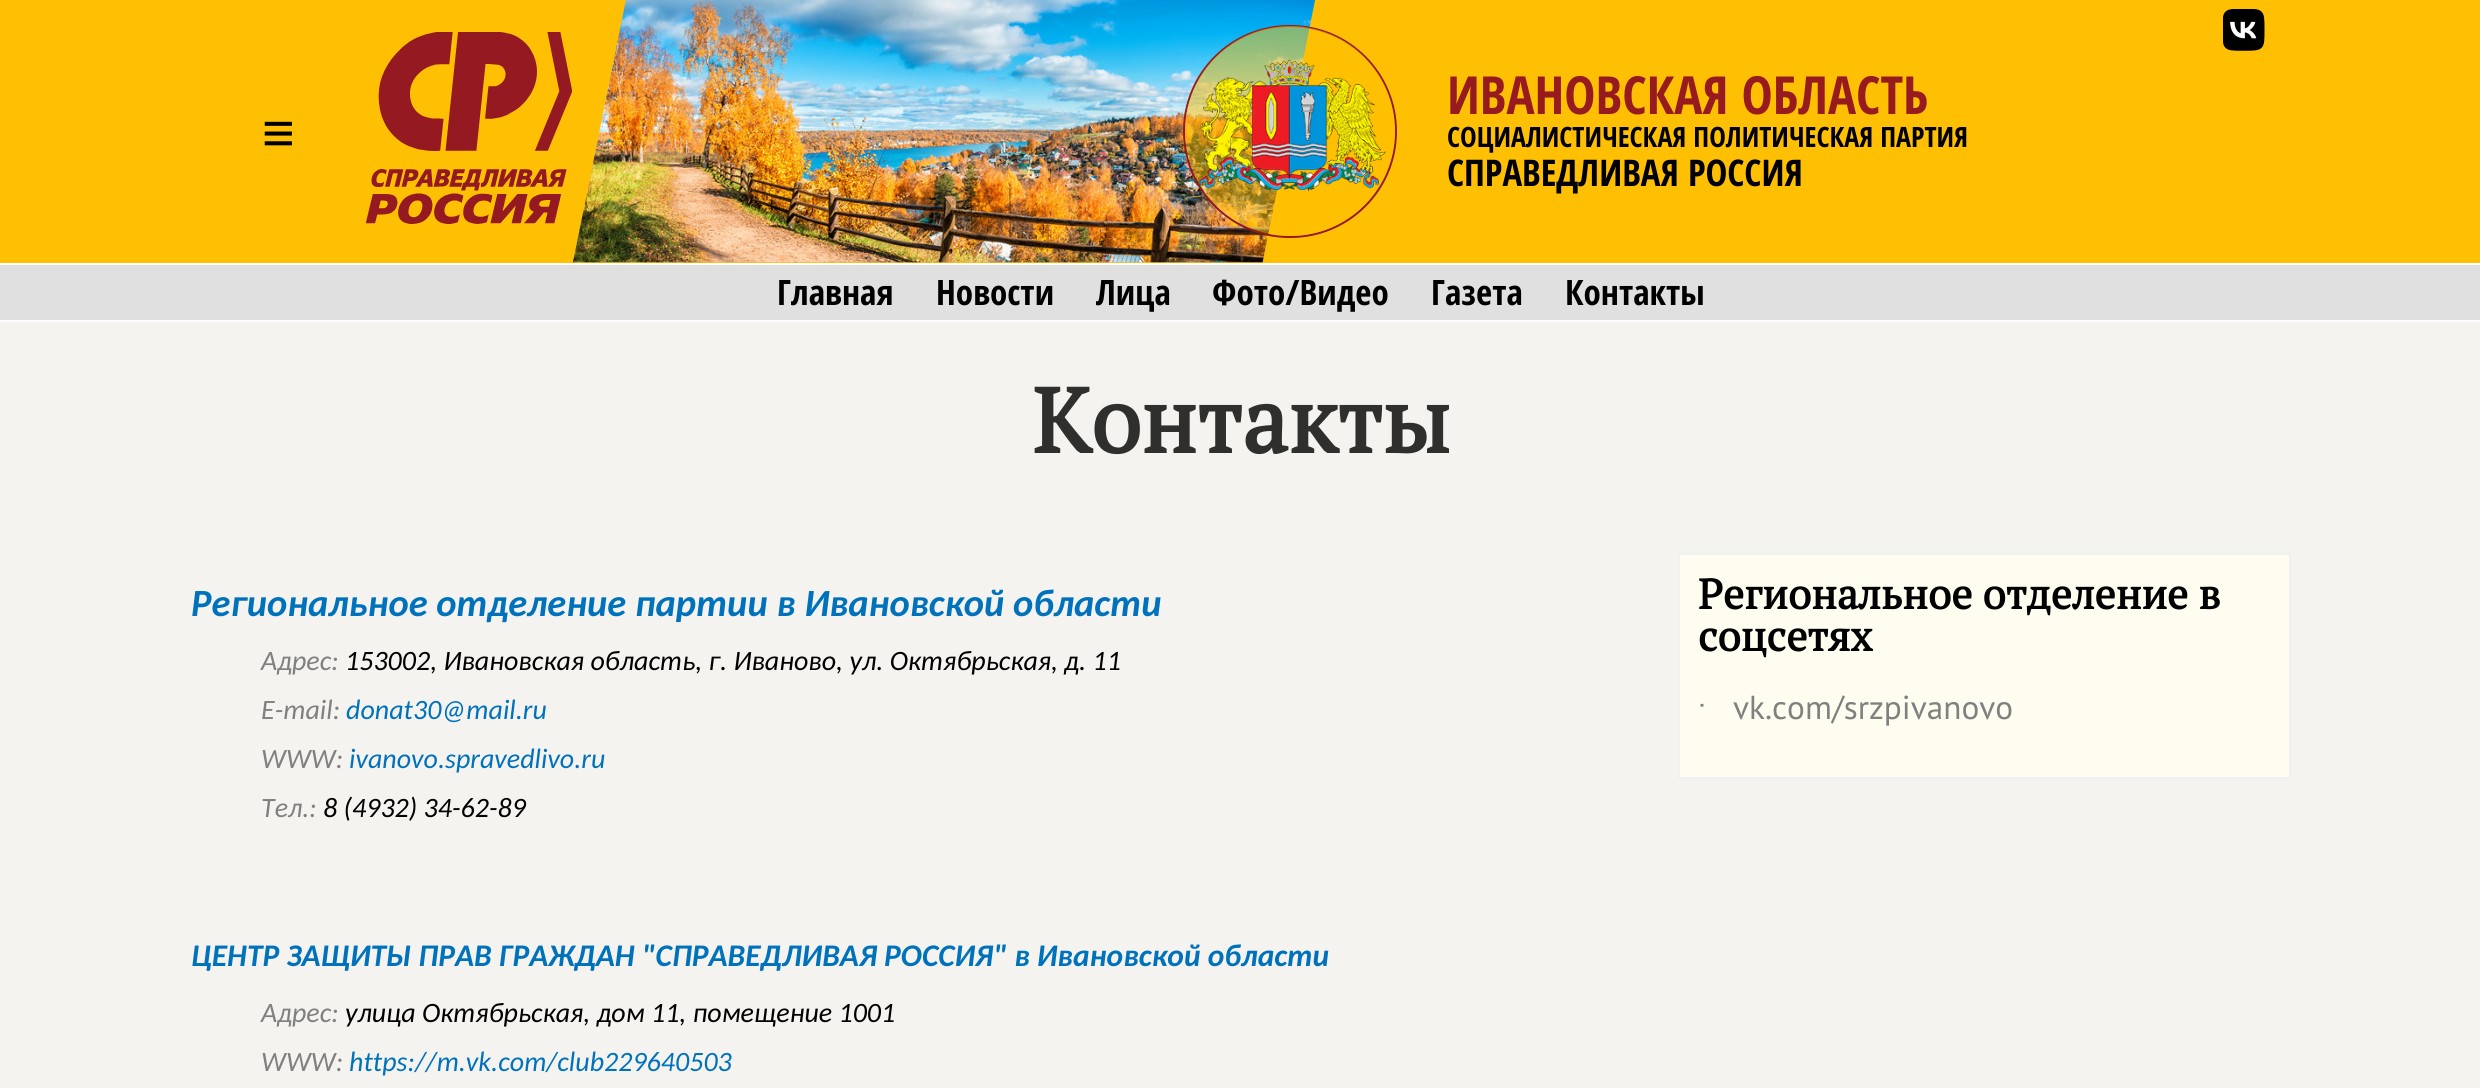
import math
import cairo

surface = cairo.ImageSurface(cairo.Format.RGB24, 2480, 1088)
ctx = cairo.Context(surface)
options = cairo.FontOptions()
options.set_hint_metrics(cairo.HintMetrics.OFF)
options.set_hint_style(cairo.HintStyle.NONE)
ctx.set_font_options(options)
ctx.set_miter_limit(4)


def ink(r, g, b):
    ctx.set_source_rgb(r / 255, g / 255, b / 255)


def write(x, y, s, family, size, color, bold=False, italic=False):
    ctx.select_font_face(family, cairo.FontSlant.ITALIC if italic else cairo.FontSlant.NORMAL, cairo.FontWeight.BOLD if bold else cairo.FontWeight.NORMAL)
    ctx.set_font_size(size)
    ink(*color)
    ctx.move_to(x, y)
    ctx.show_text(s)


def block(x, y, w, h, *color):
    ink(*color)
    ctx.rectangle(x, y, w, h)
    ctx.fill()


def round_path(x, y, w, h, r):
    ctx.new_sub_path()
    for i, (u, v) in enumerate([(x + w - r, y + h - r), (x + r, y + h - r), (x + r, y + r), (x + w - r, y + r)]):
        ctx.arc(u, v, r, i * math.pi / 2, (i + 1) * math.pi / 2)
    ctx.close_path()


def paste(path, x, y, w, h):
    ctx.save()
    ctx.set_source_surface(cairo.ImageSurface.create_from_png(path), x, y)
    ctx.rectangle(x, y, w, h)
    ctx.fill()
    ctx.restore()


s1 = dict(family="Liberation Sans", size=56, color=(0, 0, 0))
s2 = dict(family="Open Sans Condensed", size=52.5, color=(151, 27, 30), bold=True)
s3 = dict(family="Open Sans Condensed", size=28, color=(0, 0, 0), bold=True)
s4 = dict(family="Open Sans Condensed", size=36.75, color=(0, 0, 0), bold=True)
s5 = dict(family="Open Sans Condensed", size=35, color=(0, 0, 0), bold=True)
s6 = dict(family="PT Serif", size=91, color=(47, 47, 45), bold=True)
s7 = dict(family="Carlito", size=38.5, color=(0, 114, 188), bold=True, italic=True)
s8 = dict(family="Carlito", size=28, color=(128, 128, 128), italic=True)
s9 = dict(family="Carlito", size=28, color=(0, 0, 0), italic=True)
s10 = dict(family="Carlito", size=28, color=(0, 114, 188), italic=True)
s11 = dict(family="Carlito", size=31.5, color=(0, 114, 188), bold=True, italic=True)
s12 = dict(family="PT Serif", size=42, color=(0, 0, 0), bold=True)
s13 = dict(family="Liberation Sans", size=33.25, color=(128, 128, 128))
s14 = dict(family="PT Sans", size=33.25, color=(128, 128, 128))

ink(244, 243, 239)
ctx.paint()
block(0, 0, 2480, 263, 255, 192, 3)
paste("pic1.png", 2223, 9, 42, 42)
write(262, 152, "≡", **s1)
paste("pic2.png", 366, 32, 206, 192)
paste("pic3.png", 572, 0, 744, 263)
ink(255, 192, 3)
ctx.new_path()
ctx.move_to(572, 0)
ctx.line_to(625, 0)
ctx.line_to(572, 262)
ctx.close_path()
ctx.fill()
ctx.save()
ctx.rectangle(572, 0, 875, 263)
ctx.clip()
ctx.new_path()
ctx.move_to(572, 0)
ctx.line_to(625, 0)
ctx.line_to(572, 262.5)
ctx.close_path()
ctx.set_line_width(1.8)
ctx.stroke()
ctx.restore()
ctx.new_path()
ctx.move_to(1316, 0)
ctx.line_to(1447, 0)
ctx.line_to(1447, 262)
ctx.line_to(1264, 262)
ctx.close_path()
ctx.fill()
ctx.save()
ctx.rectangle(572, 0, 875, 263)
ctx.clip()
ctx.new_path()
ctx.move_to(1316, 0)
ctx.line_to(1447, 0)
ctx.line_to(1447, 262.5)
ctx.line_to(1263.5, 262.5)
ctx.close_path()
ctx.set_line_width(1.8)
ctx.stroke()
ctx.restore()
round_path(1184, 26, 212, 211, 105.5)
ink(148, 26, 31)
ctx.stroke()
ctx.set_source_rgba(1, 0.753, 0.012, 0.5)
ctx.arc(1290, 131, 105, 0, 2 * math.pi)
ctx.fill()
paste("pic4.png", 1199, 59, 187, 133)
write(1447, 114, "ИВАНОВСКАЯ ОБЛАСТЬ", **s2)
write(1447, 147, "СОЦИАЛИСТИЧЕСКАЯ ПОЛИТИЧЕСКАЯ ПАРТИЯ", **s3)
write(1447, 186, "СПРАВЕДЛИВАЯ РОССИЯ", **s4)
block(0, 265, 2480, 55, 224, 224, 224)
block(0, 263, 2480, 2, 255, 255, 255)
block(0, 320, 2480, 2, 255, 255, 255)
write(777, 305, "Главная", **s5)
write(936, 305, "Новости", **s5)
write(1096, 305, "Лица", **s5)
write(1212, 305, "Фото/Видео", **s5)
write(1431, 305, "Газета", **s5)
write(1565, 305, "Контакты", **s5)
write(1032, 453, "Контакты", **s6)
write(191, 616, "Региональное отделение партии в Ивановской области", **s7)
write(261, 670, "Адрес:", **s8)
write(345, 670, "153002, Ивановская область, г. Иваново, ул. Октябрьская, д. 11", **s9)
write(261, 719, "E-mail:", **s8)
write(346, 719, "donat30@mail.ru", **s10)
write(261, 768, "WWW:", **s8)
write(349, 768, "ivanovo.spravedlivo.ru", **s10)
write(261, 817, "Тел.:", **s8)
write(323, 817, "8 (4932) 34-62-89", **s9)
write(191, 966, "ЦЕНТР ЗАЩИТЫ ПРАВ ГРАЖДАН \"СПРАВЕДЛИВАЯ РОССИЯ\" в Ивановской области", **s11)
write(261, 1022, "Адрес:", **s8)
write(345, 1022, "улица Октябрьская, дом 11, помещение 1001", **s9)
write(261, 1071, "WWW:", **s8)
write(349, 1071, "https://m.vk.com/club229640503", **s10)
ink(254, 253, 240)
ctx.rectangle(1679, 554, 611, 224)
ctx.fill_preserve()
ink(240, 240, 240)
ctx.stroke()
write(1698, 609, "Региональное отделение в", **s12)
write(1698, 651, "соцсетях", **s12)
write(1698, 728, "˙", **s13)
write(1733, 719, "vk.com/srzpivanovo", **s14)
surface.write_to_png("screenshot.png")
